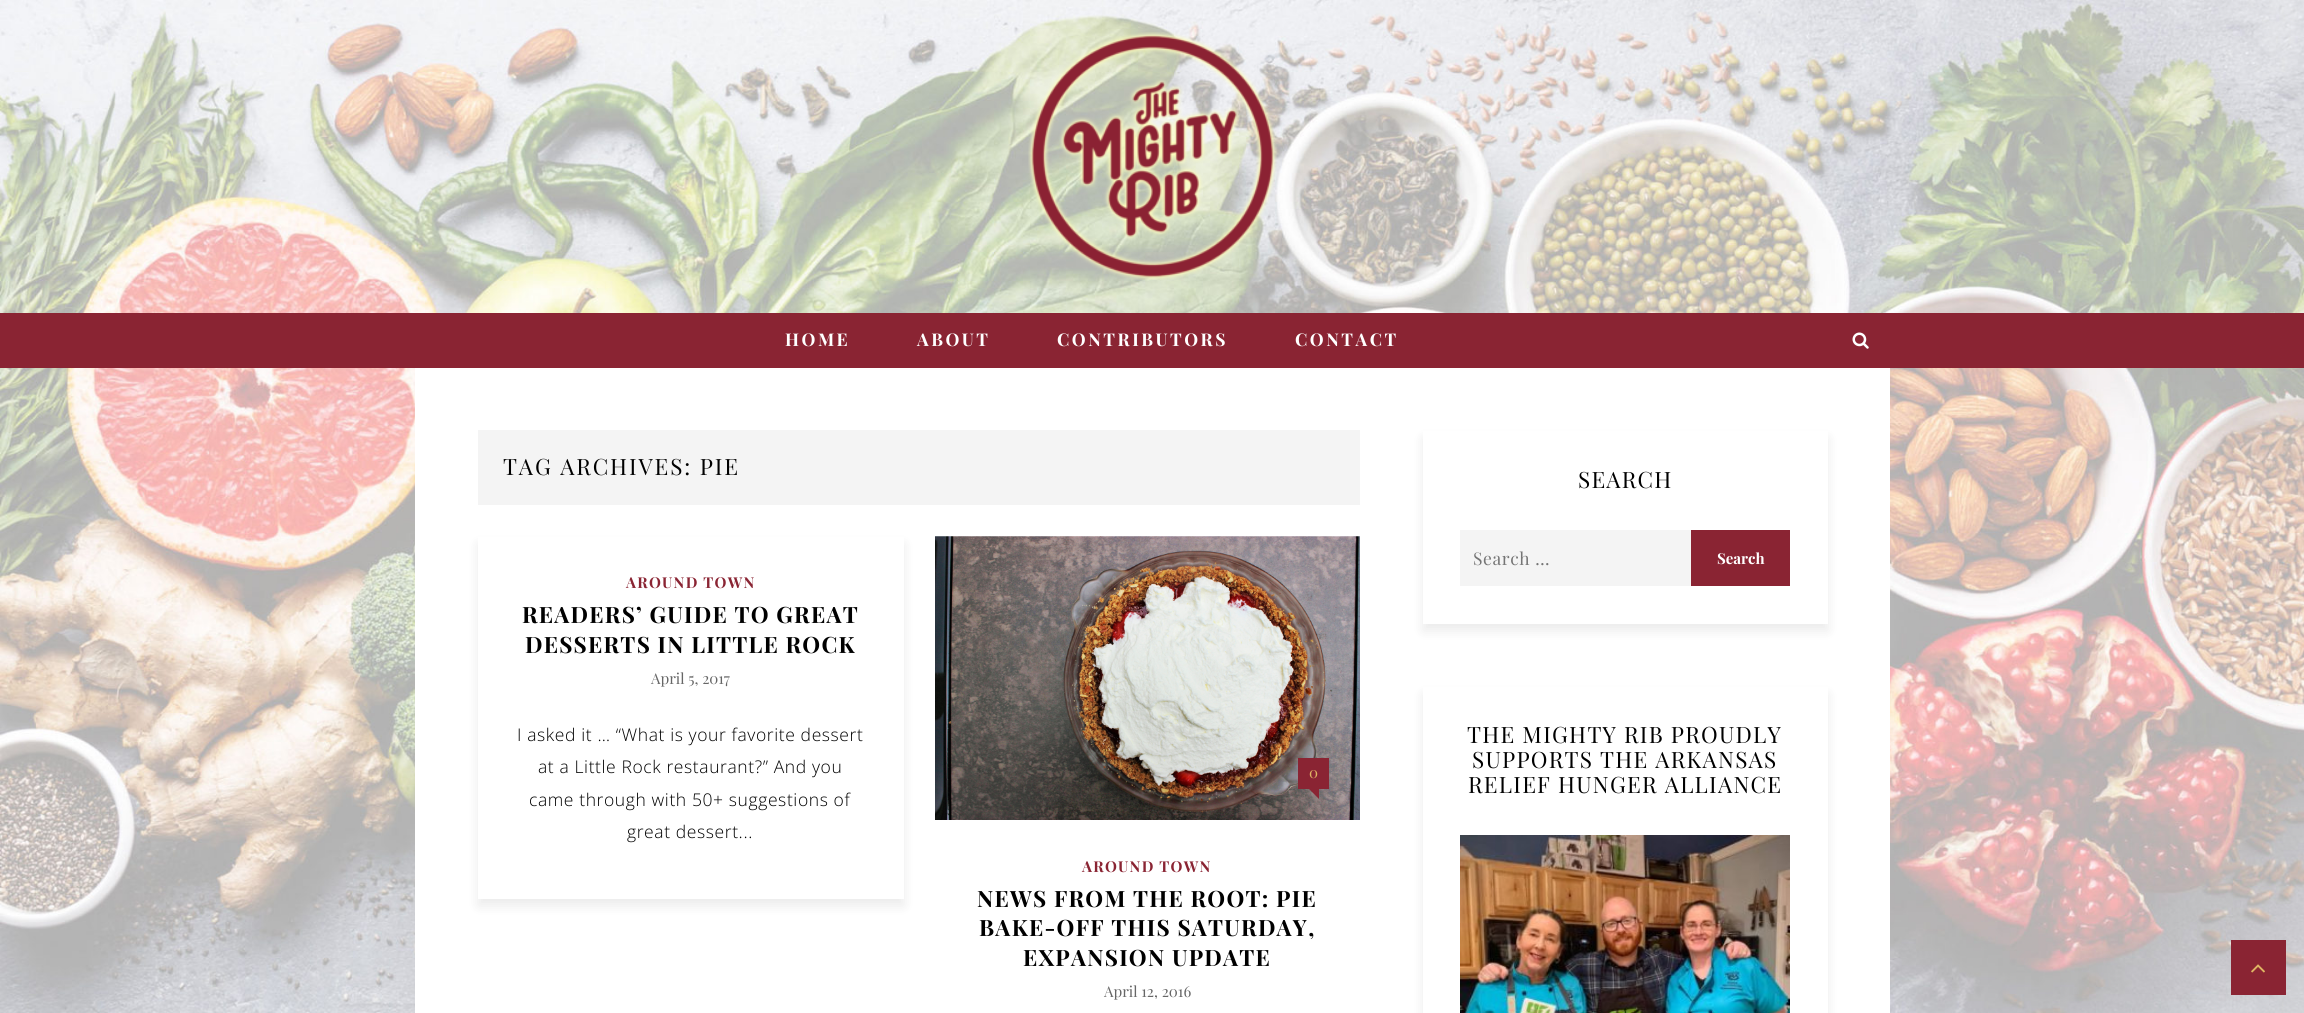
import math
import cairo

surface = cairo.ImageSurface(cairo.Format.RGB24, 2304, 1013)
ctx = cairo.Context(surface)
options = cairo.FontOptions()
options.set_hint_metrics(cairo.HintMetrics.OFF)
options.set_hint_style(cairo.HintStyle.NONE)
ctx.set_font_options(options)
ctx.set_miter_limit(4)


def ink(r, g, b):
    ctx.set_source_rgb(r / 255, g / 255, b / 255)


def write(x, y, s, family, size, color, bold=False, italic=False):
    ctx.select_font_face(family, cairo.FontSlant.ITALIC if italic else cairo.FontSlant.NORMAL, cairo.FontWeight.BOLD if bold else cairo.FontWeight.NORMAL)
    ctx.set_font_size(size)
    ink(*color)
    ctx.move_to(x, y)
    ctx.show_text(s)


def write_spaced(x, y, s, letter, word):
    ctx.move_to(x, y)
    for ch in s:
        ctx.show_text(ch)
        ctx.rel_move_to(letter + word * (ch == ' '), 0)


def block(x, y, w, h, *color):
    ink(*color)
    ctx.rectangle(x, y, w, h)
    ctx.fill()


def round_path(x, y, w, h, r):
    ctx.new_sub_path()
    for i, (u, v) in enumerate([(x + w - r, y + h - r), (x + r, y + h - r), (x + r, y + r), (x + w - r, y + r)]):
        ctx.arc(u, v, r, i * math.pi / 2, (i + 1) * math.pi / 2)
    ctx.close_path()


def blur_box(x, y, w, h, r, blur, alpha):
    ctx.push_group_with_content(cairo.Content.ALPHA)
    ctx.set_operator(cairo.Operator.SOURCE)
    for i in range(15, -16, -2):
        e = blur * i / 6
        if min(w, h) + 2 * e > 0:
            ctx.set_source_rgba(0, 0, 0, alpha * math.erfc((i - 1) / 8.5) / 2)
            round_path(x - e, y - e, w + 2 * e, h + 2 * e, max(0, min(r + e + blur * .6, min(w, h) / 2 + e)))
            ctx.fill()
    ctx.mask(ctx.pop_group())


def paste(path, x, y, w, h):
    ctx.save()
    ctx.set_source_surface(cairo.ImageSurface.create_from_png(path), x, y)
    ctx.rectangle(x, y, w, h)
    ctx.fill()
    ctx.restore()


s1 = dict(family="Playfair Display", size=15, color=(102, 102, 102))
s2 = dict(family="Playfair Display", size=15, color=(223, 181, 99))
s3 = dict(family="Playfair Display", size=15, color=(255, 255, 255), bold=True)

ink(255, 255, 255)
ctx.paint()
paste("pic1.png", 0, 0, 2304, 1013)
paste("pic2.png", 1028, 32, 249, 248)
block(0, 313, 2304, 55, 138, 36, 51)
ctx.select_font_face("Playfair Display", cairo.FontSlant.NORMAL, cairo.FontWeight.BOLD)
ctx.set_font_size(17.5)
ink(255, 255, 255)
write_spaced(785, 346, "HOME", 2.5, 0)
write_spaced(917, 346, "ABOUT", 2.5, 0)
write_spaced(1057, 346, "CONTRIBUTORS", 2.5, 0)
write_spaced(1295, 346, "CONTACT", 2.5, 0)
paste("pic3.png", 1852, 332, 17, 17)
block(415, 368, 1475, 645, 255, 255, 255)
block(478, 430, 882, 75, 244, 244, 244)
ctx.select_font_face("Playfair Display")
ctx.set_font_size(22.5)
ink(0, 0, 0)
write_spaced(503, 475, "TAG ARCHIVES: PIE", 1.9, 0)
ink(0, 0, 0)
blur_box(478, 544, 426, 362, 0, 6, 0.08)
block(478, 537, 426, 362, 255, 255, 255)
ctx.select_font_face("Playfair Display", cairo.FontSlant.NORMAL, cairo.FontWeight.BOLD)
ctx.set_font_size(15)
ink(138, 36, 51)
write_spaced(626, 588, "AROUND TOWN", 1.25, 0)
ctx.set_font_size(22.5)
ink(0, 0, 0)
write_spaced(522, 623, "READERS’ GUIDE TO GREAT", 1.25, 0)
write_spaced(525, 653, "DESSERTS IN LITTLE ROCK", 1.25, 0)
write(651, 684, "April 5, 2017", **s1)
ctx.select_font_face("Open Sans Light")
ctx.set_font_size(17.5)
ink(0, 0, 0)
write_spaced(517, 741, "I asked it … “What is your favorite dessert", 0.6, 0)
write_spaced(538, 773, "at a Little Rock restaurant?” And you", 0.6, 0)
write_spaced(529, 806, "came through with 50+ suggestions of", 0.6, 0)
write_spaced(627, 838, "great dessert...", 0.6, 0)
paste("pic4.png", 935, 536, 425, 284)
block(1298, 758, 31, 31, 138, 36, 51)
write(1309, 778, "0", **s2)
ink(138, 36, 51)
ctx.new_path()
ctx.move_to(1309, 789)
ctx.line_to(1319, 789)
ctx.line_to(1319, 799)
ctx.close_path()
ctx.fill()
ctx.select_font_face("Playfair Display", cairo.FontSlant.NORMAL, cairo.FontWeight.BOLD)
write_spaced(1082, 872, "AROUND TOWN", 1.25, 0)
ctx.set_font_size(22.5)
ink(0, 0, 0)
write_spaced(977, 907, "NEWS FROM THE ROOT: PIE", 1.25, 0)
write_spaced(979, 936, "BAKE-OFF THIS SATURDAY,", 1.25, 0)
write_spaced(1023, 966, "EXPANSION UPDATE", 1.25, 0)
write(1104, 997, "April 12, 2016", **s1)
ink(0, 0, 0)
blur_box(1423, 438, 405, 193, 0, 6, 0.08)
block(1423, 431, 405, 193, 255, 255, 255)
ctx.set_font_size(22.5)
ink(0, 0, 0)
write_spaced(1578, 488, "SEARCH", 1.25, 0)
block(1460, 530, 231, 56, 244, 244, 244)
ctx.set_font_size(17.5)
ink(117, 117, 117)
write_spaced(1473, 565, "Search …", 0.6, 0)
block(1691, 530, 99, 56, 138, 36, 51)
write(1717, 564, "Search", **s3)
ink(0, 0, 0)
blur_box(1423, 694, 405, 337, 0, 6, 0.08)
block(1423, 687, 405, 326, 255, 255, 255)
ctx.select_font_face("Playfair Display")
ctx.set_font_size(22.5)
ink(0, 0, 0)
write_spaced(1467, 743, "THE MIGHTY RIB PROUDLY", 1.25, 0)
write_spaced(1472, 768, "SUPPORTS THE ARKANSAS", 1.25, 0)
write_spaced(1468, 793, "RELIEF HUNGER ALLIANCE", 1.25, 0)
paste("pic5.png", 1460, 835, 330, 178)
block(2231, 940, 55, 55, 138, 36, 51)
paste("pic6.png", 2251, 964, 14, 9)
surface.write_to_png("screenshot.png")
